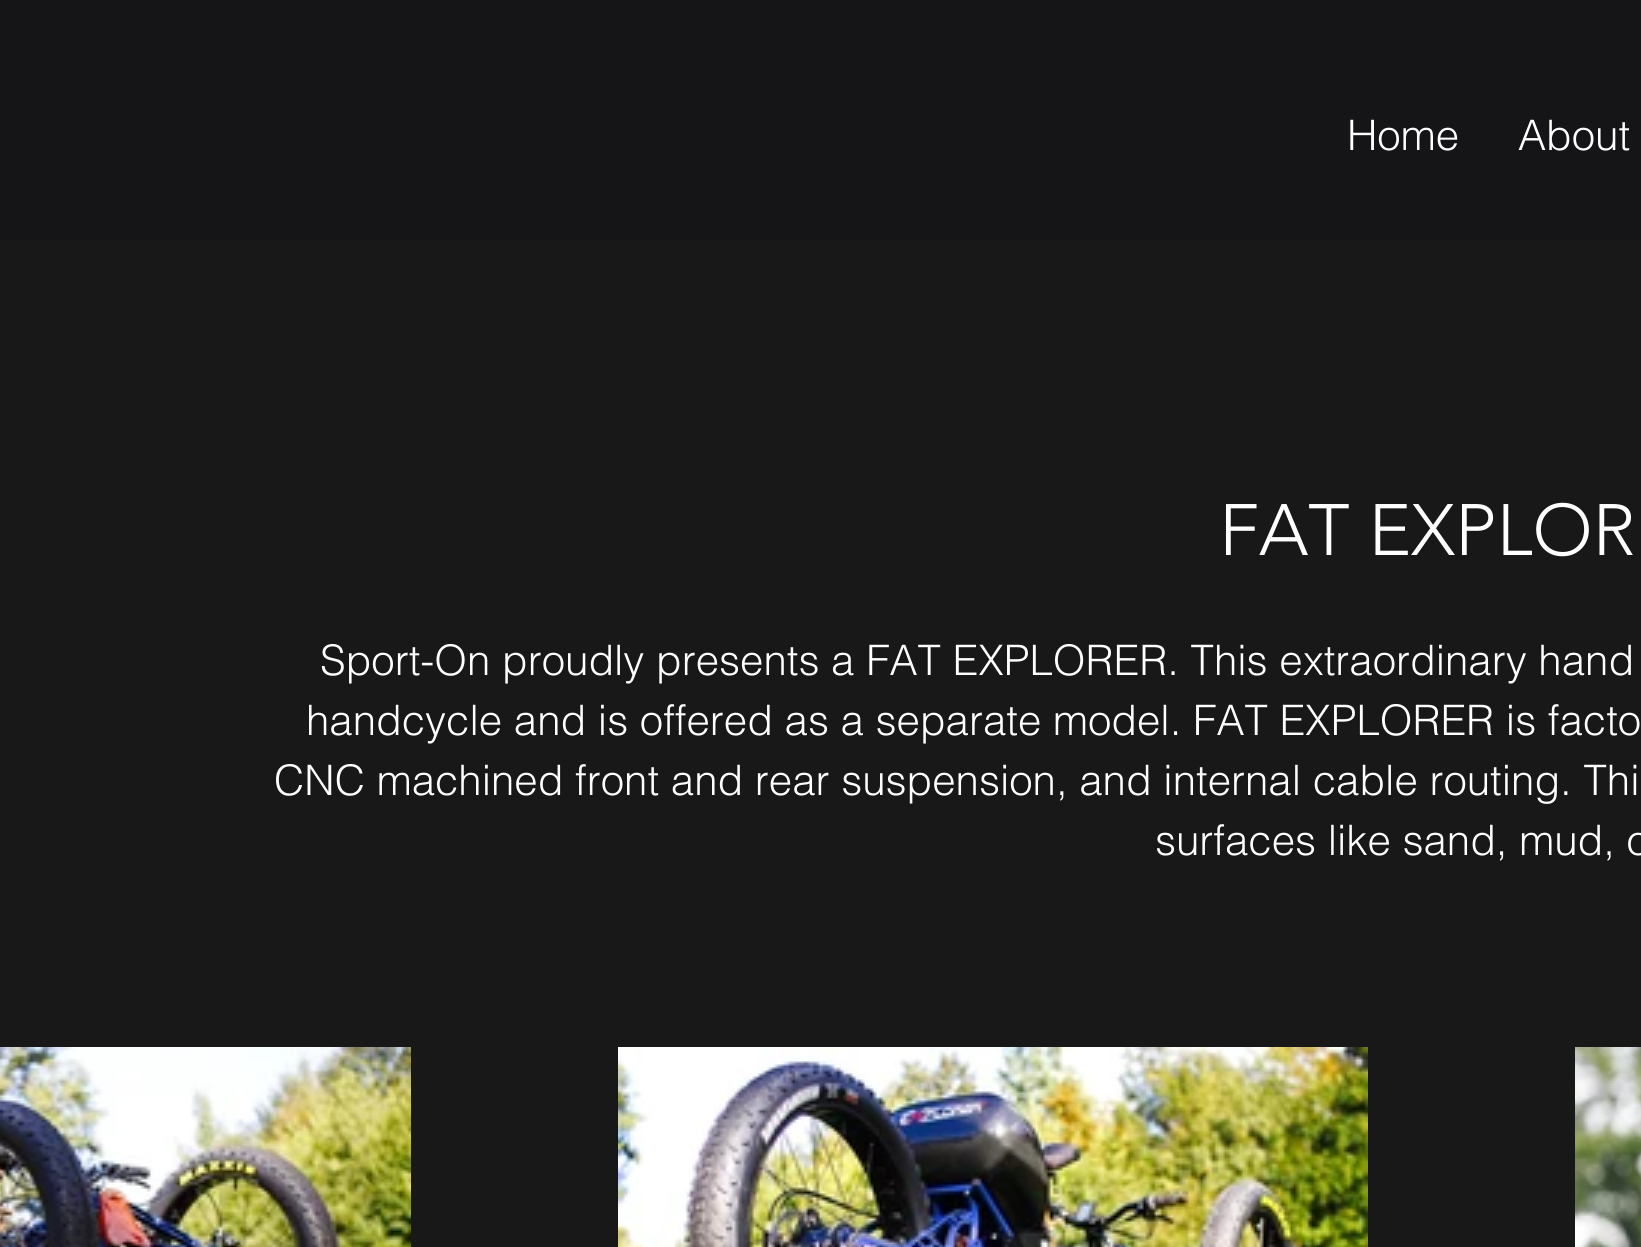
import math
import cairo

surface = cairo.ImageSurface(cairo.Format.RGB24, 1641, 1247)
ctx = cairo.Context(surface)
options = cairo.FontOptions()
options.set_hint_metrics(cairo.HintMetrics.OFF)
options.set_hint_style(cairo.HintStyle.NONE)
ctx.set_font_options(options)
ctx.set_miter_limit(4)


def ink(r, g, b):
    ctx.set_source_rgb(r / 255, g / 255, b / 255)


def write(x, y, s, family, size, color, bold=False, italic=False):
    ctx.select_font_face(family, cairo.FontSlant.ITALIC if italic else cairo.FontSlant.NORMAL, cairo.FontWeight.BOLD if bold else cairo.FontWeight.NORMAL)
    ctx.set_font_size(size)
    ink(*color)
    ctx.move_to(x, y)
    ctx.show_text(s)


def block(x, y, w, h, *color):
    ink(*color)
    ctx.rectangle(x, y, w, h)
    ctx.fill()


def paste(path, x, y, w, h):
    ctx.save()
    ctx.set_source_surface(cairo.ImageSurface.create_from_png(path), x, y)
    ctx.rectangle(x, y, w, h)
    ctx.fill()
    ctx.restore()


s1 = dict(family="helvetica Light", size=42, color=(255, 255, 255))
s2 = dict(family="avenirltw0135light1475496 Light", size=72, color=(255, 255, 255))

ink(24, 24, 24)
ctx.paint()
block(0, 0, 1641, 240, 21, 21, 24)
write(1347, 150, "Home", **s1)
write(1518, 150, "About", **s1)
write(1219, 555, "FAT EXPLOR", **s2)
write(320, 675, "Sport-On proudly presents a FAT EXPLORER. This extraordinary hand", **s1)
write(306, 735, "handcycle and is offered as a separate model. FAT EXPLORER is facto", **s1)
write(274, 795, "CNC machined front and rear suspension, and internal cable routing. Thi", **s1)
write(1155, 855, "surfaces like sand, mud, o", **s1)
paste("pic1.png", 0, 1047, 411, 200)
paste("pic2.png", 618, 1047, 750, 200)
paste("pic3.png", 1575, 1047, 66, 200)
surface.write_to_png("screenshot.png")
